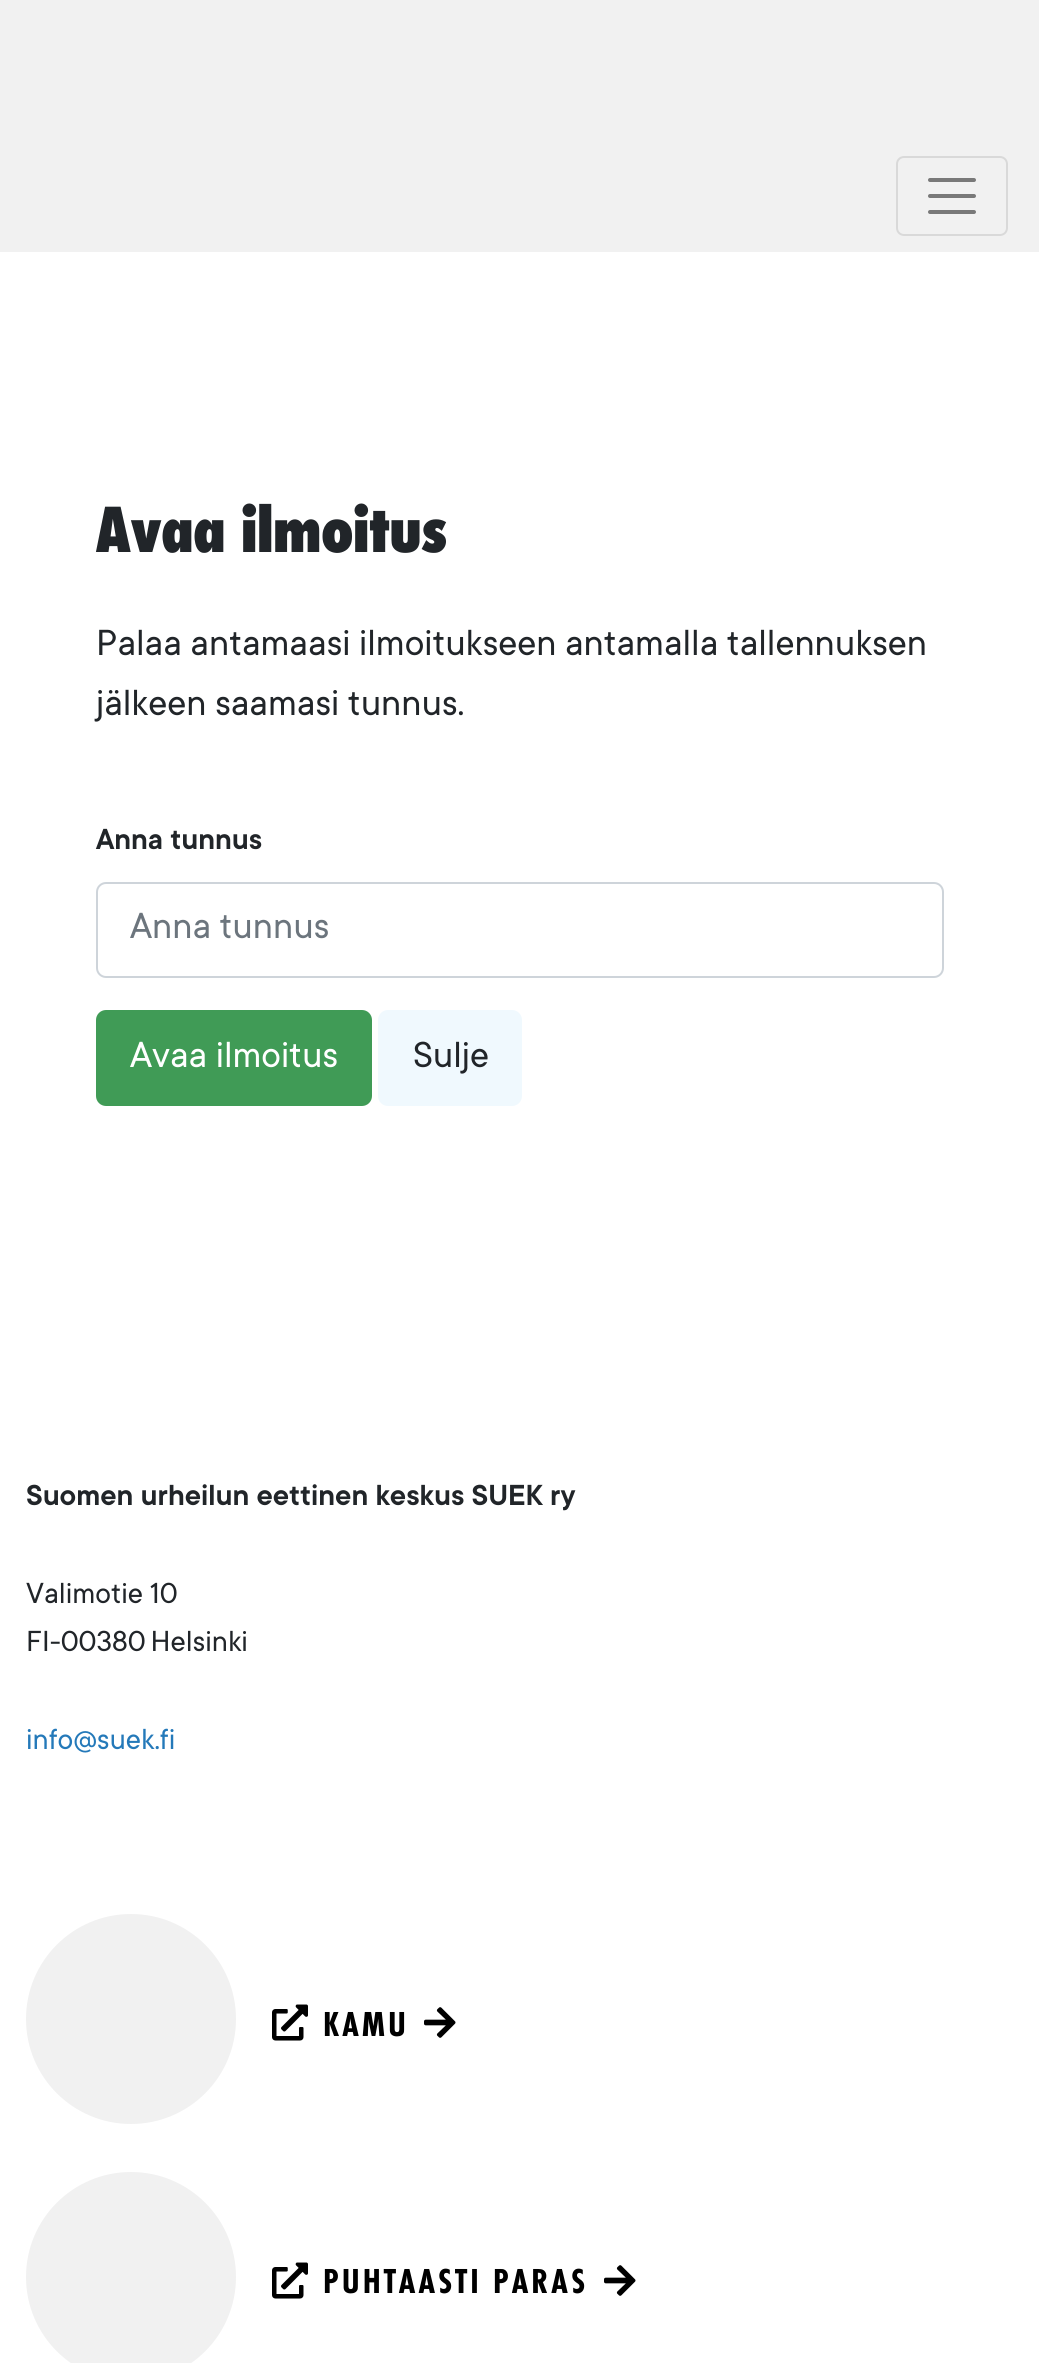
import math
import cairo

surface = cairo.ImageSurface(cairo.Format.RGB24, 1039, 2363)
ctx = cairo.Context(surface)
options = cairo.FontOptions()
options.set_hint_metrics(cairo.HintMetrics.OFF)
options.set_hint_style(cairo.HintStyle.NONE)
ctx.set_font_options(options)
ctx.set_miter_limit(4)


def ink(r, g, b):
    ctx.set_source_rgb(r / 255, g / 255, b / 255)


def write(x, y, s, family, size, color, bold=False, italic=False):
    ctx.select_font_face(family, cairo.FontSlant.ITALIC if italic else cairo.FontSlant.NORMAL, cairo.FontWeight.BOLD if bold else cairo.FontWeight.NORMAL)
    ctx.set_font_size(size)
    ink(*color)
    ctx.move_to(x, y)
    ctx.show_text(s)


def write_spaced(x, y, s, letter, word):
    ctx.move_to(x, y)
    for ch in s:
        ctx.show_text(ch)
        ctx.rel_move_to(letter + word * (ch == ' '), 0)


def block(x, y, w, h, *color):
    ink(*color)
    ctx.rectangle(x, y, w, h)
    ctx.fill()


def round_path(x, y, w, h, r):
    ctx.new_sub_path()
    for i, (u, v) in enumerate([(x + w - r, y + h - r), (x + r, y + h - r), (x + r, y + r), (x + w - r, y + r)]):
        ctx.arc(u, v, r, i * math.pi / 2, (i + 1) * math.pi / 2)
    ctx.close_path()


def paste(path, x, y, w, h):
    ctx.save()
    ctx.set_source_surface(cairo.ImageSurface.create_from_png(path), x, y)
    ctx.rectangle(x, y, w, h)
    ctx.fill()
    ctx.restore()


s1 = dict(family="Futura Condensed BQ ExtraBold", size=64, color=(33, 37, 41))
s2 = dict(family="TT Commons", size=40, color=(33, 37, 41))
s3 = dict(family="TT Commons SemiBold", size=32, color=(33, 37, 41))
s4 = dict(family="TT Commons", size=40, color=(108, 117, 125))
s5 = dict(family="TT Commons", size=40, color=(255, 255, 255))
s6 = dict(family="TT Commons", size=32, color=(33, 37, 41))
s7 = dict(family="TT Commons", size=32, color=(36, 121, 185))

ink(255, 255, 255)
ctx.paint()
block(0, 0, 1039, 252, 241, 241, 241)
round_path(897, 157, 110, 78, 7)
ink(217, 217, 217)
ctx.stroke()
ctx.new_path()
ctx.move_to(930, 180)
ctx.line_to(974, 180)
ctx.move_to(930, 196)
ctx.line_to(974, 196)
ctx.move_to(930, 212)
ctx.line_to(974, 212)
ink(121, 121, 121)
ctx.set_line_width(4)
ctx.set_line_cap(cairo.LineCap.ROUND)
ctx.stroke()
write(96, 552, "Avaa ilmoitus", **s1)
write(96, 655, "Palaa antamaasi ilmoitukseen antamalla tallennuksen", **s2)
write(96, 715, "jälkeen saamasi tunnus.", **s2)
write(96, 849, "Anna tunnus", **s3)
round_path(97, 883, 846, 94, 9)
ink(206, 212, 218)
ctx.set_line_width(2)
ctx.set_line_cap(cairo.LineCap.BUTT)
ctx.stroke()
write(130, 938, "Anna tunnus", **s4)
ink(64, 155, 86)
round_path(97, 1011, 274, 94, 9)
ctx.fill_preserve()
ctx.stroke()
write(130, 1067, "Avaa ilmoitus", **s5)
ink(240, 249, 254)
round_path(379, 1011, 142, 94, 9)
ctx.fill_preserve()
ctx.stroke()
write(413, 1067, "Sulje", **s2)
write(26, 1505, "Suomen urheilun eettinen keskus SUEK ry", **s3)
write(26, 1603, "Valimotie 10", **s6)
write_spaced(26, 1651, "FI-00380 Helsinki", 0, -2)
write(26, 1749, "info@suek.fi", **s7)
ink(241, 241, 241)
ctx.new_path()
ctx.arc(131, 2019, 105, 0, 2 * math.pi)
ctx.fill()
paste("pic1.png", 272, 2004, 36, 37)
ctx.select_font_face("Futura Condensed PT", cairo.FontSlant.NORMAL, cairo.FontWeight.BOLD)
ctx.set_font_size(36)
ink(0, 0, 0)
write_spaced(323, 2036, "KAMU", 3, 0)
paste("pic2.png", 424, 2007, 32, 31)
ink(241, 241, 241)
ctx.arc(131, 2277, 105, 0, 2 * math.pi)
ctx.fill()
paste("pic1.png", 272, 2262, 36, 37)
ink(0, 0, 0)
write_spaced(323, 2293, "PUHTAASTI PARAS", 3, 0)
paste("pic2.png", 604, 2265, 32, 31)
surface.write_to_png("screenshot.png")
